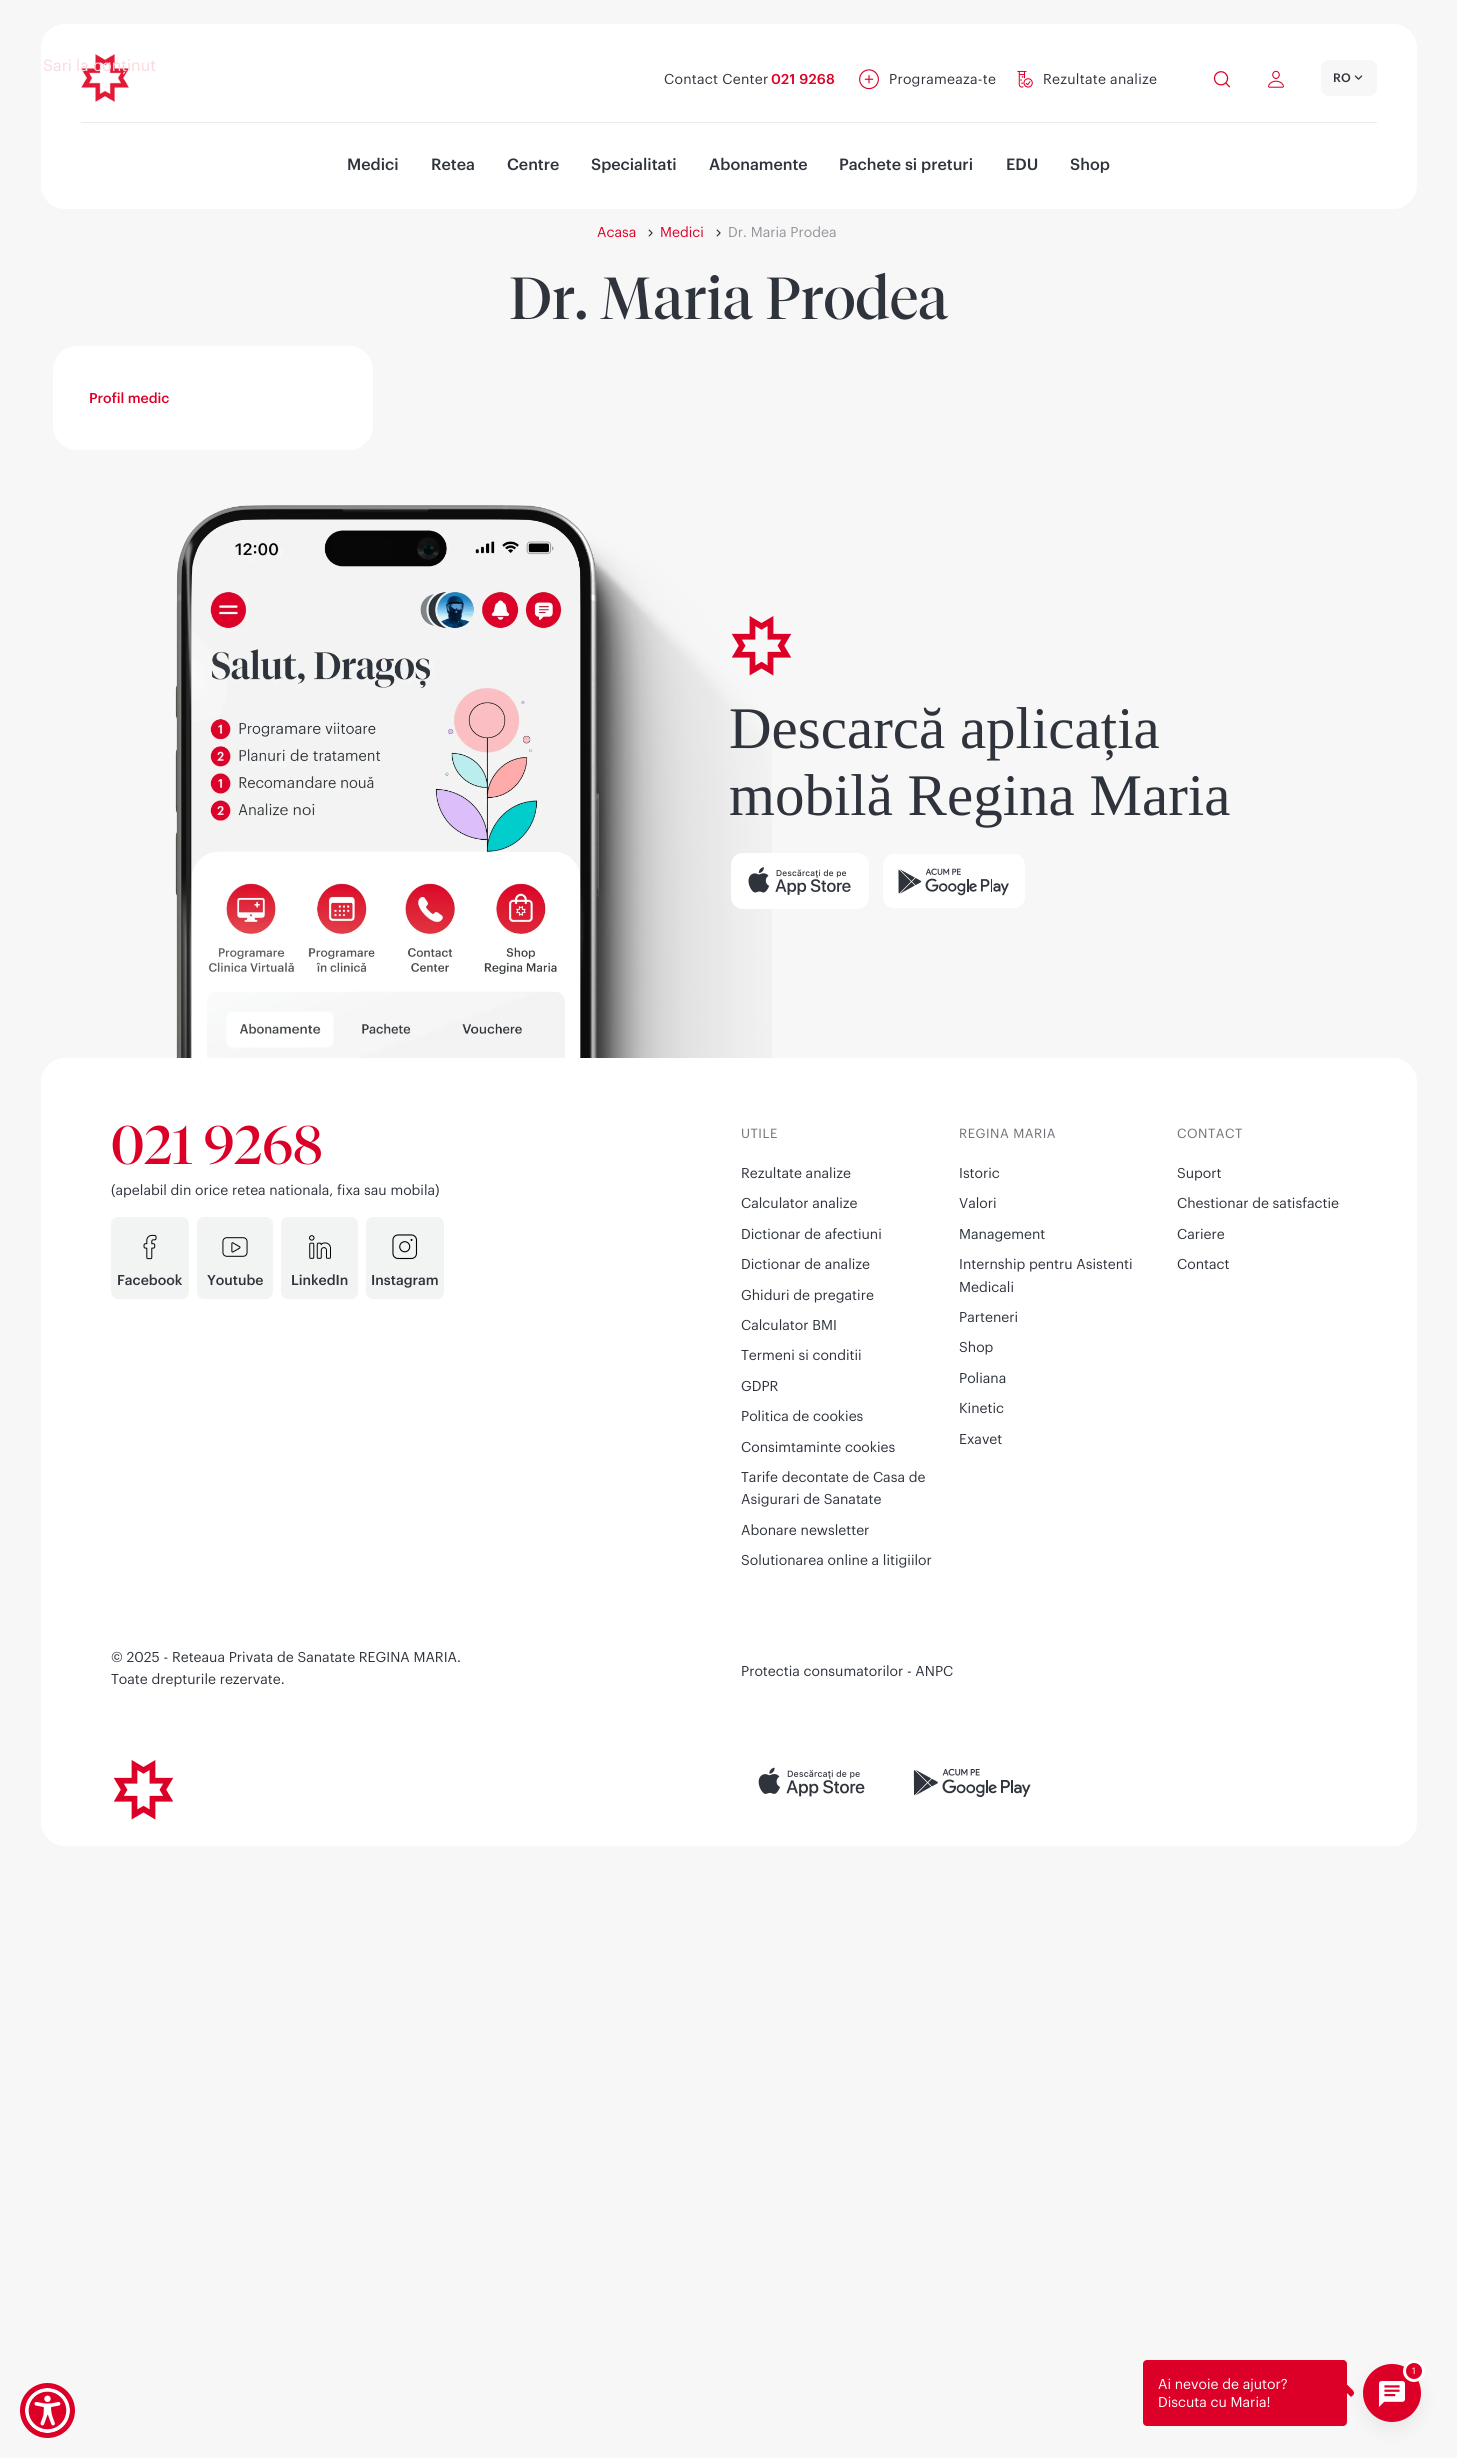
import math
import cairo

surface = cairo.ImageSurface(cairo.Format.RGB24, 1457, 2458)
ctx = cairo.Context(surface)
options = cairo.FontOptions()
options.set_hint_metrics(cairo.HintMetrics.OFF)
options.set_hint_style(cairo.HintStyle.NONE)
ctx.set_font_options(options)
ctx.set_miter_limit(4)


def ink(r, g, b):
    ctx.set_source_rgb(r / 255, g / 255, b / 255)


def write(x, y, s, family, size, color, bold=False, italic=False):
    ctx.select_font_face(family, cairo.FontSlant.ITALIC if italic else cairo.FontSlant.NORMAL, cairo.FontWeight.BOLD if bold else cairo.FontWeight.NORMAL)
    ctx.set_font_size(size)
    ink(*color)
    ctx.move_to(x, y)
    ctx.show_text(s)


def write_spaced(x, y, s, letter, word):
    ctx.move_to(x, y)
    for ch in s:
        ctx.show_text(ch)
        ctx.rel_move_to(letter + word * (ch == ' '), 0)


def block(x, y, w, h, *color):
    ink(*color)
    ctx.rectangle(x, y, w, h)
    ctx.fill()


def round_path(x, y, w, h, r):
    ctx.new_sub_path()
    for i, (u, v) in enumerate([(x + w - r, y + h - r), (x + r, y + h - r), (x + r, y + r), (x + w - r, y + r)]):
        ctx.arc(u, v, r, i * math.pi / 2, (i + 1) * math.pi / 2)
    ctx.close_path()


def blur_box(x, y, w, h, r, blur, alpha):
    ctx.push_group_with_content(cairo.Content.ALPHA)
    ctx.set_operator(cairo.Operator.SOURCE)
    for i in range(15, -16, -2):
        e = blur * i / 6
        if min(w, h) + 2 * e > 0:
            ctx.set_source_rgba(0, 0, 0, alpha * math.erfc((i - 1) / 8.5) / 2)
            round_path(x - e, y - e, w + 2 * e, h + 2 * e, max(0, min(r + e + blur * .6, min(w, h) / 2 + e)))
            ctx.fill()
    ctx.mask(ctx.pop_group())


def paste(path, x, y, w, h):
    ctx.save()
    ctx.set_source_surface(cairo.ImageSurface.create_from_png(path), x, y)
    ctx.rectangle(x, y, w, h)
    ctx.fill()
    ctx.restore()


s1 = dict(family="Graphik", size=16, color=(250, 217, 222))
s2 = dict(family="Graphik Medium", size=16, color=(46, 51, 60))
s3 = dict(family="Graphik", size=14, color=(220, 0, 40))
s4 = dict(family="Graphik", size=14, color=(147, 149, 154))
s5 = dict(family="Graphik Medium", size=14, color=(220, 0, 40))
s6 = dict(family="Liberation Serif", size=59, color=(46, 51, 60))
s7 = dict(family="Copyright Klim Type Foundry", size=54, color=(220, 0, 40))
s8 = dict(family="Graphik", size=14, color=(46, 51, 60))
s9 = dict(family="Graphik Medium", size=14, color=(46, 51, 60))
s10 = dict(family="Graphik", size=9, color=(255, 255, 255))
s11 = dict(family="Graphik", size=14, color=(255, 255, 255))

ink(247, 247, 247)
ctx.paint()
ink(255, 255, 255)
round_path(41, 24, 1376, 185, 24)
ctx.fill()
paste("pic2.png", 81, 54, 48, 48)
write(43, 71, "Sari la conținut", **s1)
ink(220, 0, 40)
ctx.new_path()
ctx.arc(47.5, 2410.5, 27.5, 0, 2 * math.pi)
ctx.fill()
paste("pic1.png", 25, 2388, 45, 45)
block(81, 122, 1296, 1, 234, 234, 235)
ctx.set_font_size(14)
ink(46, 51, 60)
write_spaced(664, 84, "Contact Center", 0.25, 0)
ctx.select_font_face("Graphik Medium")
ink(220, 0, 40)
write_spaced(771, 84, "021 9268", 0.25, 0)
paste("pic3.png", 859, 69, 20, 21)
ctx.select_font_face("Graphik")
ink(46, 51, 60)
write_spaced(889, 84, "Programeaza-te", 0.25, 0)
paste("pic4.png", 1017, 70, 16, 18)
write_spaced(1043, 84, "Rezultate analize", 0.25, 0)
paste("pic5.png", 1213, 71, 18, 17)
paste("pic6.png", 1268, 70, 16, 18)
ink(247, 247, 247)
round_path(1321, 60, 56, 36, 8)
ctx.fill()
ctx.select_font_face("Graphik Medium")
ctx.set_font_size(12)
ink(46, 51, 60)
write_spaced(1333, 82, "RO", 0.25, 0)
paste("pic7.png", 1354, 75, 9, 5)
write(347, 170, "Medici", **s2)
write(431, 170, "Retea", **s2)
write(507, 170, "Centre", **s2)
write(591, 170, "Specialitati", **s2)
write(709, 170, "Abonamente", **s2)
write(839, 170, "Pachete si preturi", **s2)
write(1006, 170, "EDU", **s2)
write(1070, 170, "Shop", **s2)
write(597, 237, "Acasa", **s3)
paste("pic8.png", 648, 229, 5, 8)
write(660, 237, "Medici", **s3)
paste("pic8.png", 716, 229, 5, 8)
write(728, 237, "Dr. Maria Prodea", **s4)
ctx.select_font_face("Copyright Klim Type Foundry")
ctx.set_font_size(59)
ink(46, 51, 60)
write_spaced(509, 319, "Dr. Maria Prodea", 0.25, 0)
ink(255, 255, 255)
round_path(53, 346, 320, 104, 24)
ctx.fill()
write(89, 403, "Profil medic", **s5)
paste("pic9.png", 175, 505, 597, 553)
paste("pic10.png", 731, 616, 61, 60)
write(729, 748, "Descarcă aplicația", **s6)
write(729, 815, "mobilă Regina Maria", **s6)
paste("pic11.png", 731, 853, 138, 56)
paste("pic12.png", 883, 854, 142, 54)
ink(255, 255, 255)
round_path(41, 1058, 1376, 788, 24)
ctx.fill()
write(111, 1164, "021 9268", **s7)
write(111, 1195, "(apelabil din orice retea nationala, fixa sau mobila)", **s8)
ink(242, 243, 243)
round_path(111, 1217, 78, 82, 7)
ctx.fill()
paste("pic13.png", 143, 1234, 14, 26)
write(117, 1285, "Facebook", **s9)
ink(242, 243, 243)
round_path(197, 1217, 76, 82, 7)
ctx.fill()
paste("pic14.png", 222, 1237, 26, 20)
write(207, 1285, "Youtube", **s9)
ink(242, 243, 243)
round_path(281, 1217, 77, 82, 7)
ctx.fill()
paste("pic15.png", 309, 1235, 22, 24)
write(291, 1285, "LinkedIn", **s9)
ink(242, 243, 243)
round_path(366, 1217, 78, 82, 7)
ctx.fill()
paste("pic16.png", 392, 1234, 26, 26)
write(371, 1285, "Instagram", **s9)
ctx.select_font_face("Graphik")
ctx.set_font_size(13)
ink(108, 112, 118)
write_spaced(741, 1138, "UTILE", 0.5, 0)
write(741, 1178, "Rezultate analize", **s8)
write(741, 1208, "Calculator analize", **s8)
write(741, 1239, "Dictionar de afectiuni", **s8)
write(741, 1269, "Dictionar de analize", **s8)
write(741, 1300, "Ghiduri de pregatire", **s8)
write(741, 1330, "Calculator BMI", **s8)
write(741, 1360, "Termeni si conditii", **s8)
write(741, 1391, "GDPR", **s8)
write(741, 1421, "Politica de cookies", **s8)
write(741, 1452, "Consimtaminte cookies", **s8)
write(741, 1482, "Tarife decontate de Casa de", **s8)
write(741, 1504, "Asigurari de Sanatate", **s8)
write(741, 1535, "Abonare newsletter", **s8)
write(741, 1565, "Solutionarea online a litigiilor", **s8)
ctx.set_font_size(13)
ink(108, 112, 118)
write_spaced(959, 1138, "REGINA MARIA", 0.5, 0)
write(959, 1178, "Istoric", **s8)
write(959, 1208, "Valori", **s8)
write(959, 1239, "Management", **s8)
write(959, 1269, "Internship pentru Asistenti", **s8)
write(959, 1292, "Medicali", **s8)
write(959, 1322, "Parteneri", **s8)
write(959, 1352, "Shop", **s8)
write(959, 1383, "Poliana", **s8)
write(959, 1413, "Kinetic", **s8)
write(959, 1444, "Exavet", **s8)
ctx.set_font_size(13)
ink(108, 112, 118)
write_spaced(1177, 1138, "CONTACT", 0.5, 0)
write(1177, 1178, "Suport", **s8)
write(1177, 1208, "Chestionar de satisfactie", **s8)
write(1177, 1239, "Cariere", **s8)
write(1177, 1269, "Contact", **s8)
write(111, 1662, "© 2025 - Reteaua Privata de Sanatate REGINA MARIA.", **s8)
write(111, 1684, "Toate drepturile rezervate.", **s8)
write(741, 1676, "Protectia consumatorilor - ANPC", **s8)
paste("pic17.png", 113, 1760, 61, 60)
paste("pic18.png", 758, 1767, 107, 30)
paste("pic19.png", 913, 1768, 118, 30)
ink(220, 0, 40)
round_path(1143, 2360, 204, 66, 4)
ctx.fill()
ctx.new_path()
ctx.move_to(1347, 2384.5)
ctx.line_to(1352.5, 2390)
ctx.curve_to(1355.5, 2393.5, 1354, 2394.5, 1351, 2397)
ctx.line_to(1347, 2393)
ctx.close_path()
ctx.fill()
ink(0, 0, 0)
blur_box(1363, 2372, 58, 58, 29, 9.5, 0.06)
ink(220, 0, 40)
ctx.arc(1392, 2393, 29, 0, 2 * math.pi)
ctx.fill()
paste("pic20.png", 1379, 2381, 26, 26)
ctx.arc(1414, 2371, 9.5, 0, 2 * math.pi)
ctx.fill_preserve()
ink(255, 255, 255)
ctx.set_line_width(3)
ctx.stroke()
write(1412, 2374, "1", **s10)
write(1158, 2389, "Ai nevoie de ajutor?", **s11)
write(1158, 2407, "Discuta cu Maria!", **s11)
surface.write_to_png("screenshot.png")
